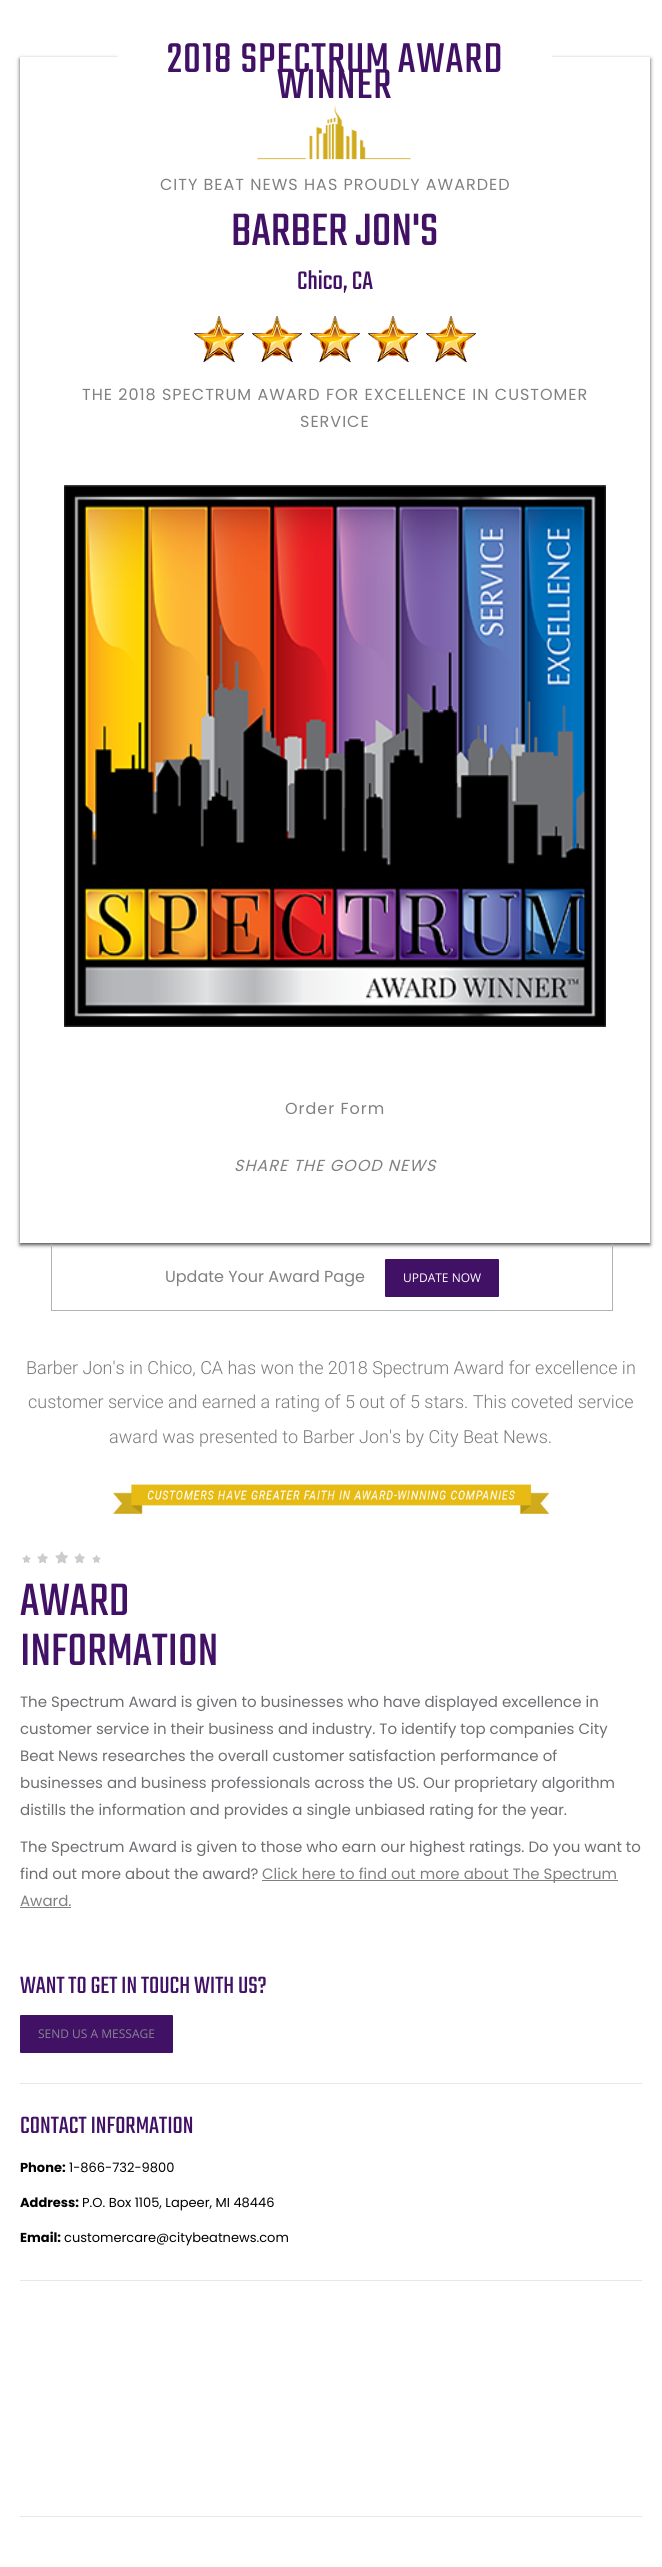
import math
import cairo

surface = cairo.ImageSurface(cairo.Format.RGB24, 662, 2567)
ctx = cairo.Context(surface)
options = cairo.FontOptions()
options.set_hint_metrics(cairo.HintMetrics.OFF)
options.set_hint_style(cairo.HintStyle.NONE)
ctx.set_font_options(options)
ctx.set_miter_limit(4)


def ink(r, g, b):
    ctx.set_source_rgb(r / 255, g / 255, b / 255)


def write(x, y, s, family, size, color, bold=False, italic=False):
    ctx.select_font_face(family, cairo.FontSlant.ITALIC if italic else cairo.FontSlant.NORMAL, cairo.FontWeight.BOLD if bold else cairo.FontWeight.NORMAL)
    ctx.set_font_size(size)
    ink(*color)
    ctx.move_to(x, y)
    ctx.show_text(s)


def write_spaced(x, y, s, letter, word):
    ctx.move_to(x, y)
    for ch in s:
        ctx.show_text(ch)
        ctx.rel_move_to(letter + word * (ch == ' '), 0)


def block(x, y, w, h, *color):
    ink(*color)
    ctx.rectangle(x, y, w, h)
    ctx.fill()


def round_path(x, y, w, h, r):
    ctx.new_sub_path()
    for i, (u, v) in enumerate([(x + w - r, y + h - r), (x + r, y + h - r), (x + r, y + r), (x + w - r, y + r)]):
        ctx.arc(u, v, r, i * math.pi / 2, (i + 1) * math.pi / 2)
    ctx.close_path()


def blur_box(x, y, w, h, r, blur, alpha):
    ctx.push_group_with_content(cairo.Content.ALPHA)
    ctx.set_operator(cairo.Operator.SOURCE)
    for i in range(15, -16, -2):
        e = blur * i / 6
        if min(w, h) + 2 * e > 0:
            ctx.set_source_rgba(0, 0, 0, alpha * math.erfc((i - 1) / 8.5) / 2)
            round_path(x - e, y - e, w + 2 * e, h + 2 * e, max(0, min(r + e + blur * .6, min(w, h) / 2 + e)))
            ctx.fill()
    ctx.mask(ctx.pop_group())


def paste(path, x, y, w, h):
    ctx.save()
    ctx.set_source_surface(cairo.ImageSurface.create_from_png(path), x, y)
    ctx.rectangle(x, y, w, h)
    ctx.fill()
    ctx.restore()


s1 = dict(family="Teko", size=50, color=(65, 17, 102))
s2 = dict(family="Teko", size=28, color=(65, 17, 102))
s3 = dict(family="Poppins", size=16, color=(128, 128, 128))
s4 = dict(family="Open Sans", size=12, color=(255, 255, 255))
s5 = dict(family="Roboto Light", size=18, color=(122, 122, 122))
s6 = dict(family="Poppins", size=15, color=(109, 109, 114))
s7 = dict(family="Poppins", size=15, color=(128, 128, 128))
s8 = dict(family="Teko", size=26, color=(65, 17, 102))
s9 = dict(family="Open Sans", size=12, color=(133, 134, 140))
s10 = dict(family="Poppins", size=13, color=(0, 0, 0), bold=True)
s11 = dict(family="Poppins", size=13, color=(0, 0, 0))

ink(255, 255, 255)
ctx.paint()
ctx.save()
ctx.set_fill_rule(cairo.FillRule.EVEN_ODD)
ctx.new_path()
ctx.move_to(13, 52)
ctx.line_to(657, 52)
ctx.line_to(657, 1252)
ctx.line_to(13, 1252)
ctx.close_path()
ctx.move_to(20, 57)
ctx.line_to(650, 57)
ctx.line_to(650, 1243)
ctx.line_to(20, 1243)
ctx.close_path()
ctx.clip()
ink(76, 76, 76)
blur_box(20, 59, 630, 1186, 0, 2, 1)
ctx.restore()
block(118, 55, 434, 2, 255, 255, 255)
ctx.select_font_face("Teko")
ctx.set_font_size(46)
ink(65, 17, 102)
write_spaced(167, 72, "2018 SPECTRUM AWARD", 1, 0)
write_spaced(277, 98, "WINNER", 1, 0)
paste("pic1.png", 257, 105, 154, 55)
ctx.select_font_face("Poppins")
ctx.set_font_size(16)
ink(128, 128, 128)
write_spaced(160, 190, "CITY BEAT NEWS HAS PROUDLY AWARDED", 1, 0)
write(231, 245, "BARBER JON'S", **s1)
write(297, 289, "Chico, CA", **s2)
paste("pic2.png", 194, 316, 50, 47)
paste("pic3.png", 252, 316, 50, 47)
paste("pic4.png", 310, 316, 50, 47)
paste("pic2.png", 368, 316, 50, 47)
paste("pic2.png", 426, 316, 50, 47)
ctx.select_font_face("Poppins")
ctx.set_font_size(16)
ink(128, 128, 128)
write_spaced(82, 400, "THE 2018 SPECTRUM AWARD FOR EXCELLENCE IN CUSTOMER", 1, 0)
write_spaced(300, 427, "SERVICE", 1, 0)
paste("pic5.png", 64, 485, 542, 542)
write_spaced(285, 1114, "Order Form", 1, 0)
ctx.select_font_face("Poppins", cairo.FontSlant.ITALIC)
write_spaced(234, 1171, "SHARE THE GOOD NEWS", 1, 0)
block(612, 1244, 1, 67, 178, 178, 178)
block(51, 1310, 562, 1, 178, 178, 178)
block(51, 1244, 1, 67, 178, 178, 178)
write(165, 1282, "Update Your Award Page", **s3)
ink(65, 17, 102)
round_path(385, 1259, 114, 38, 1)
ctx.fill()
write(403, 1282, "UPDATE NOW", **s4)
write(26, 1374, "Barber Jon's in Chico, CA has won the 2018 Spectrum Award for excellence in", **s5)
write(28, 1408, "customer service and earned a rating of 5 out of 5 stars. This coveted service", **s5)
write(109, 1443, "award was presented to Barber Jon's by City Beat News.", **s5)
paste("pic6.png", 113, 1484, 436, 30)
paste("pic7.png", 22, 1555, 9, 8)
paste("pic8.png", 37, 1553, 11, 11)
paste("pic9.png", 55, 1551, 13, 13)
paste("pic8.png", 74, 1553, 11, 11)
paste("pic7.png", 92, 1555, 9, 8)
write(20, 1615, "AWARD", **s1)
write(20, 1665, "INFORMATION", **s1)
write(20, 1707, "The Spectrum Award is given to businesses who have displayed excellence in", **s6)
write(20, 1734, "customer service in their business and industry. To identify top companies City", **s6)
write(20, 1761, "Beat News researches the overall customer satisfaction performance of", **s6)
write(20, 1788, "businesses and business professionals across the US. Our proprietary algorithm", **s6)
write(20, 1815, "distills the information and provides a single unbiased rating for the year.", **s6)
write(20, 1852, "The Spectrum Award is given to those who earn our highest ratings. Do you want to", **s6)
write(20, 1879, "find out more about the award?", **s6)
block(262, 1880, 356, 1, 127, 127, 127)
write(262, 1879, "Click here to find out more about The Spectrum", **s7)
write(20, 1906, "Award.", **s7)
block(20, 1907, 51, 1, 127, 127, 127)
write(20, 1993, "WANT TO GET IN TOUCH WITH US?", **s8)
round_path(20, 2015, 153, 38, 1)
ctx.fill()
write(38, 2038, "SEND US A MESSAGE", **s9)
block(20, 2083, 622, 1, 231, 231, 231)
write(20, 2133, "CONTACT INFORMATION", **s8)
write(20, 2172, "Phone:", **s10)
write(69, 2172, "1-866-732-9800", **s11)
write(20, 2207, "Address:", **s10)
write(82, 2207, "P.O. Box 1105, Lapeer, MI 48446", **s11)
write(20, 2242, "Email:", **s10)
write(64, 2242, "customercare@citybeatnews.com", **s11)
block(20, 2280, 622, 1, 231, 231, 231)
block(20, 2516, 622, 1, 231, 231, 231)
surface.write_to_png("screenshot.png")
